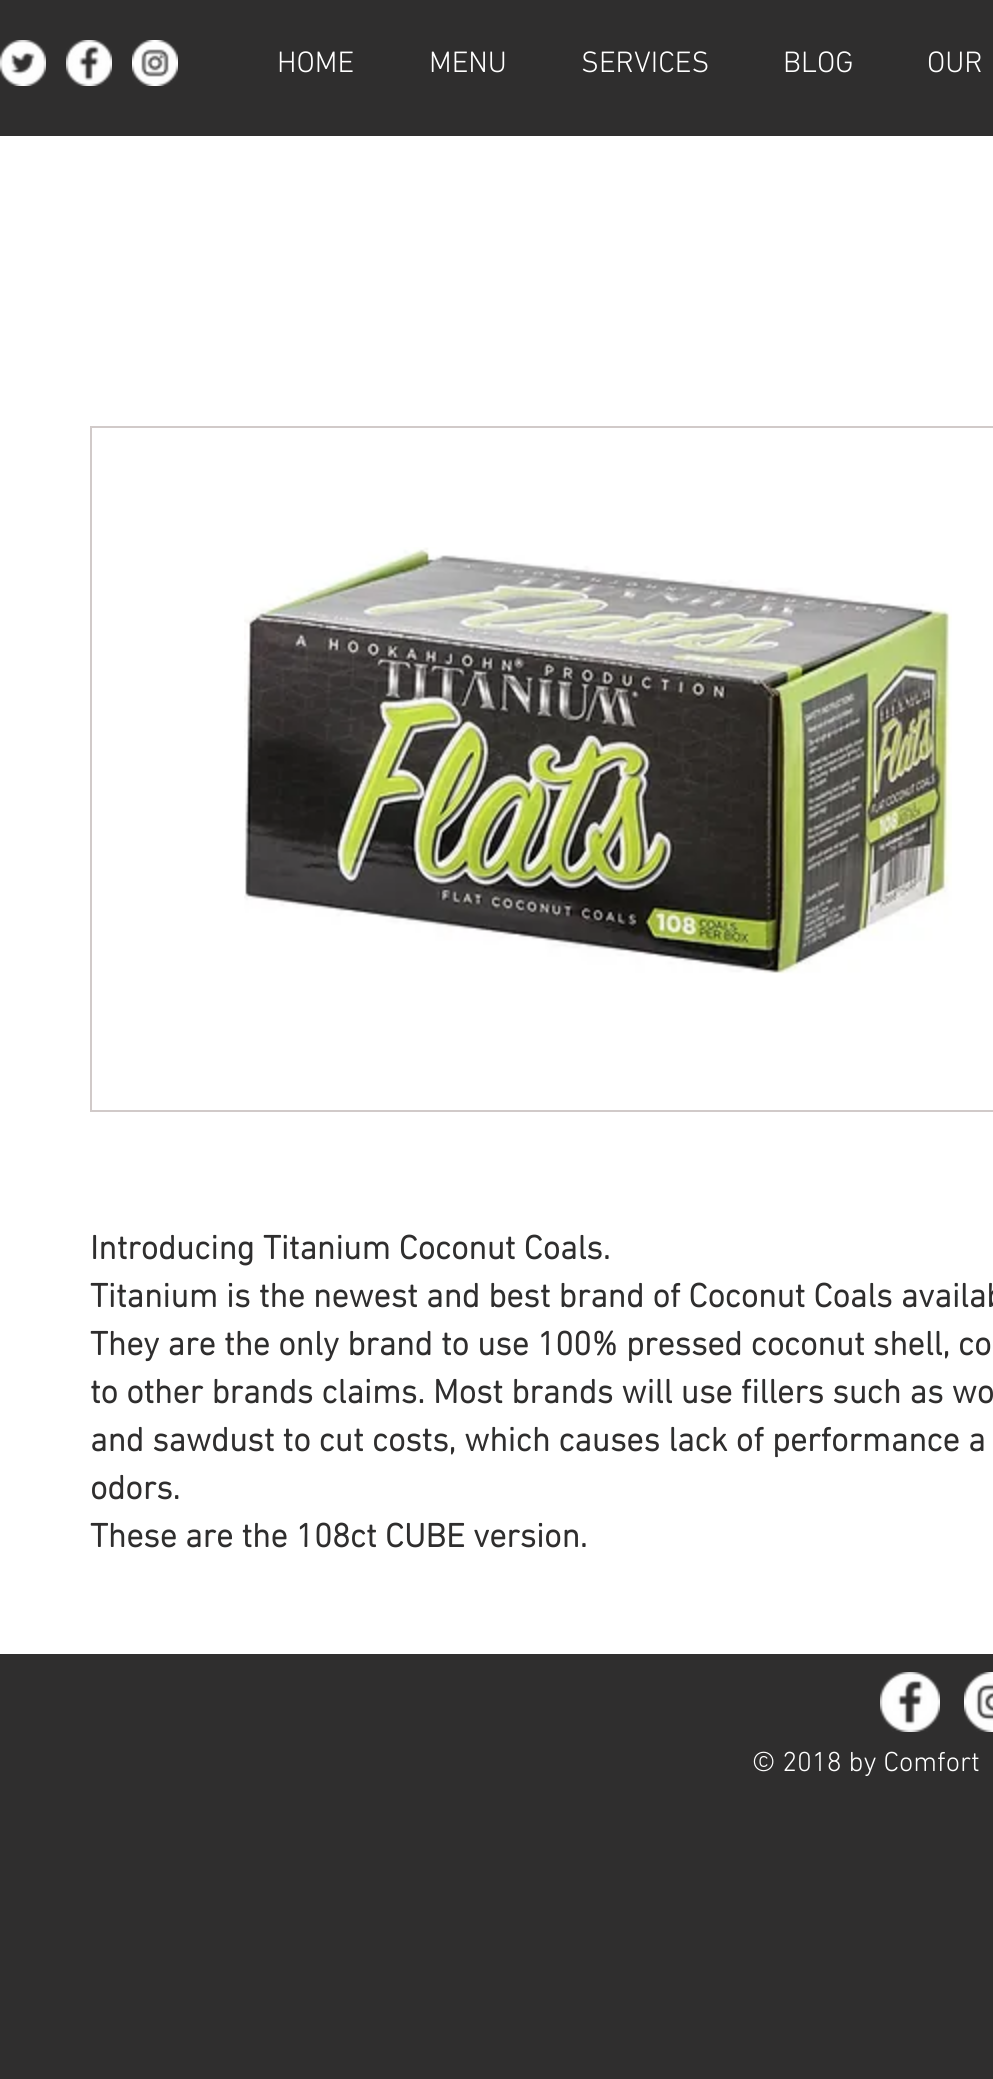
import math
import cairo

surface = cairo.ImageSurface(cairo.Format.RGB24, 993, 2079)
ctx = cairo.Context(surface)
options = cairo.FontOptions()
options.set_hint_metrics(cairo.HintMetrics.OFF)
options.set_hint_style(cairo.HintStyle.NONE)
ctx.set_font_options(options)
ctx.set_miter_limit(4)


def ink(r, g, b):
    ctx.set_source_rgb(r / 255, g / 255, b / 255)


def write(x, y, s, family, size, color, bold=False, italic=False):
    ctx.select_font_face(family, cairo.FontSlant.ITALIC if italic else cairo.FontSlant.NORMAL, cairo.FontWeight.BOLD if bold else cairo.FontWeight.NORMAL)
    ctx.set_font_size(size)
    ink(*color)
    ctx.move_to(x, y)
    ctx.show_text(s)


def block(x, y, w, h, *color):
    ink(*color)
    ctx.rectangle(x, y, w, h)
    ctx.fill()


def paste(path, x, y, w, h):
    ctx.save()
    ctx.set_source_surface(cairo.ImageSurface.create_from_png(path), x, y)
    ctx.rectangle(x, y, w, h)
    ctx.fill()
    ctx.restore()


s1 = dict(family="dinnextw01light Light", size=30, color=(255, 255, 255))
s2 = dict(family="dinnextw01light", size=34, color=(47, 46, 46), bold=True)
s3 = dict(family="dinnextw01light Light", size=28, color=(255, 255, 255))

ink(47, 46, 46)
ctx.paint()
paste("pic1.png", 0, 40, 46, 46)
paste("pic2.png", 66, 40, 46, 46)
paste("pic3.png", 132, 40, 46, 46)
write(277, 72, "HOME", **s1)
write(429, 72, "MENU", **s1)
write(581, 72, "SERVICES", **s1)
write(783, 72, "BLOG", **s1)
write(927, 72, "OUR", **s1)
block(0, 136, 993, 1518, 255, 255, 255)
ctx.rectangle(91, 427, 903, 684)
ink(209, 202, 201)
ctx.stroke()
paste("pic4.png", 244, 547, 708, 427)
write(90, 1259, "Introducing Titanium Coconut Coals.", **s2)
write(90, 1307, "Titanium is the newest and best brand of Coconut Coals availab", **s2)
write(90, 1355, "They are the only brand to use 100% pressed coconut shell, co", **s2)
write(90, 1403, "to other brands claims. Most brands will use fillers such as wo", **s2)
write(90, 1451, "and sawdust to cut costs, which causes lack of performance a", **s2)
write(90, 1499, "odors.", **s2)
write(90, 1547, "These are the 108ct CUBE version.", **s2)
paste("pic5.png", 880, 1672, 60, 60)
paste("pic6.png", 964, 1672, 29, 60)
write(752, 1771, "© 2018 by Comfort", **s3)
surface.write_to_png("screenshot.png")
